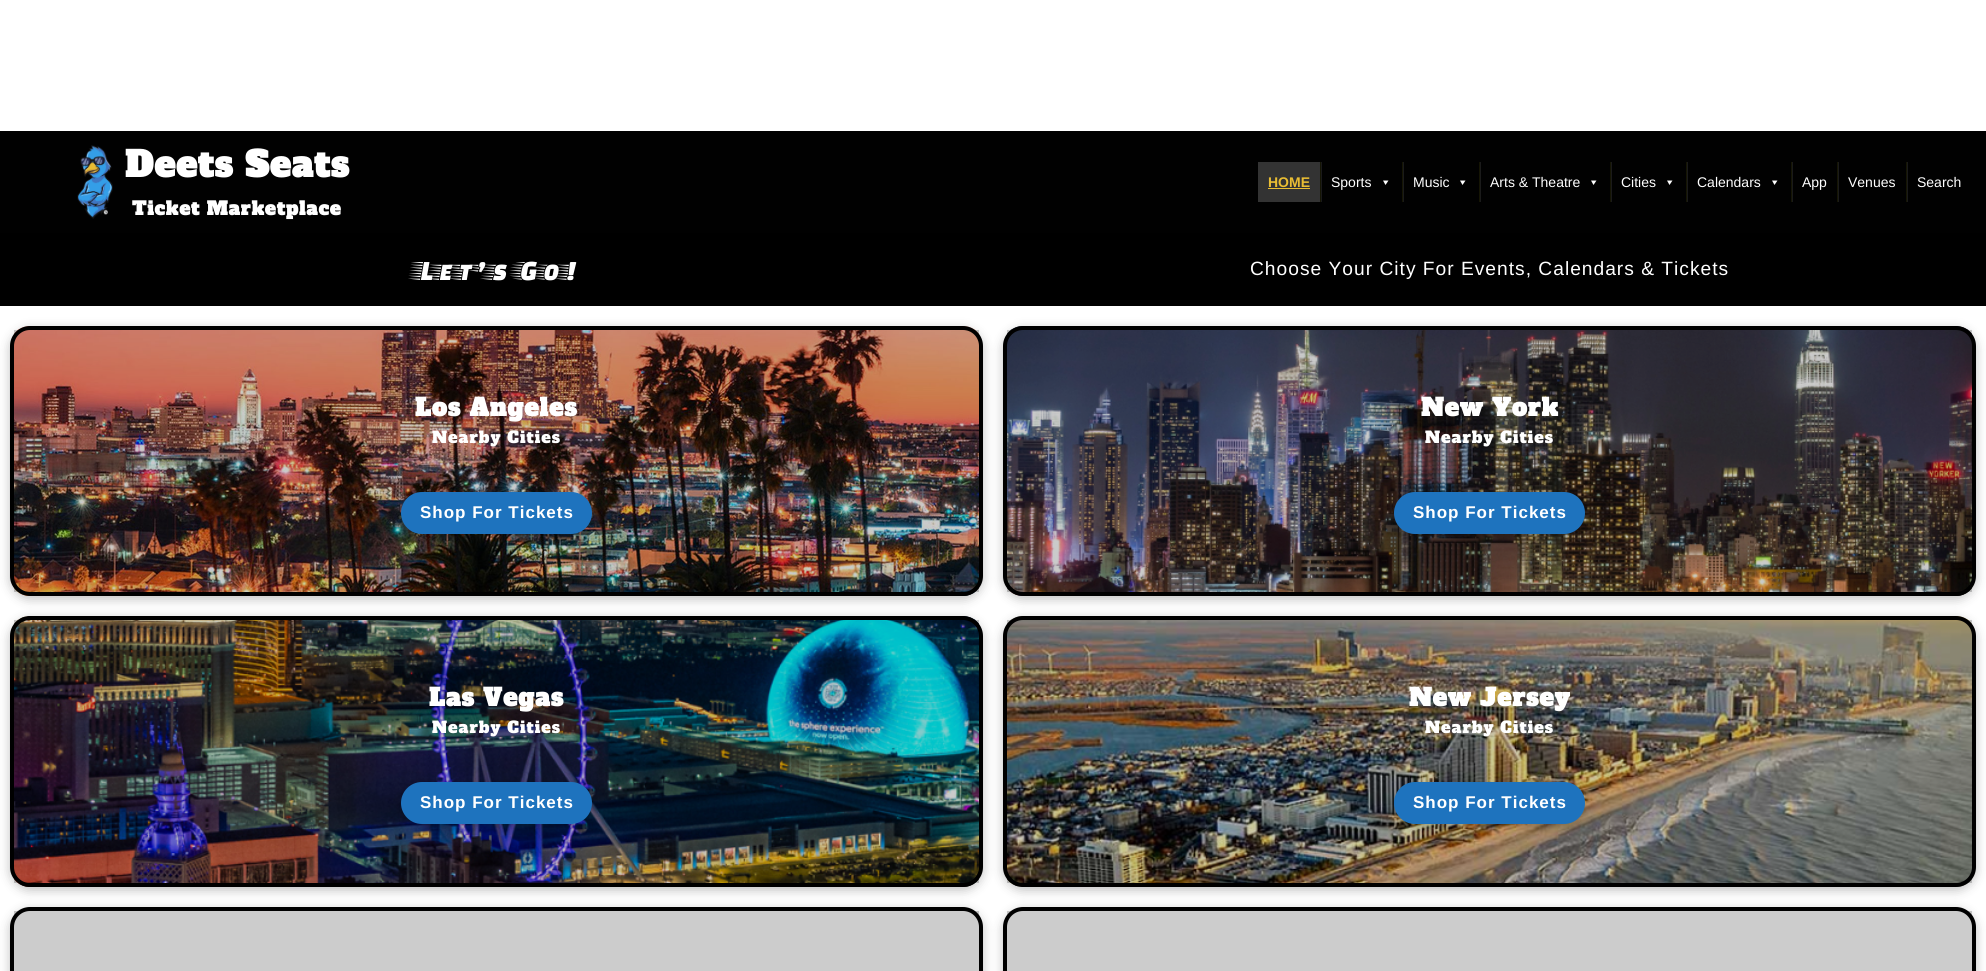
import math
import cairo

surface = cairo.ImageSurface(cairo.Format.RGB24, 1986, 971)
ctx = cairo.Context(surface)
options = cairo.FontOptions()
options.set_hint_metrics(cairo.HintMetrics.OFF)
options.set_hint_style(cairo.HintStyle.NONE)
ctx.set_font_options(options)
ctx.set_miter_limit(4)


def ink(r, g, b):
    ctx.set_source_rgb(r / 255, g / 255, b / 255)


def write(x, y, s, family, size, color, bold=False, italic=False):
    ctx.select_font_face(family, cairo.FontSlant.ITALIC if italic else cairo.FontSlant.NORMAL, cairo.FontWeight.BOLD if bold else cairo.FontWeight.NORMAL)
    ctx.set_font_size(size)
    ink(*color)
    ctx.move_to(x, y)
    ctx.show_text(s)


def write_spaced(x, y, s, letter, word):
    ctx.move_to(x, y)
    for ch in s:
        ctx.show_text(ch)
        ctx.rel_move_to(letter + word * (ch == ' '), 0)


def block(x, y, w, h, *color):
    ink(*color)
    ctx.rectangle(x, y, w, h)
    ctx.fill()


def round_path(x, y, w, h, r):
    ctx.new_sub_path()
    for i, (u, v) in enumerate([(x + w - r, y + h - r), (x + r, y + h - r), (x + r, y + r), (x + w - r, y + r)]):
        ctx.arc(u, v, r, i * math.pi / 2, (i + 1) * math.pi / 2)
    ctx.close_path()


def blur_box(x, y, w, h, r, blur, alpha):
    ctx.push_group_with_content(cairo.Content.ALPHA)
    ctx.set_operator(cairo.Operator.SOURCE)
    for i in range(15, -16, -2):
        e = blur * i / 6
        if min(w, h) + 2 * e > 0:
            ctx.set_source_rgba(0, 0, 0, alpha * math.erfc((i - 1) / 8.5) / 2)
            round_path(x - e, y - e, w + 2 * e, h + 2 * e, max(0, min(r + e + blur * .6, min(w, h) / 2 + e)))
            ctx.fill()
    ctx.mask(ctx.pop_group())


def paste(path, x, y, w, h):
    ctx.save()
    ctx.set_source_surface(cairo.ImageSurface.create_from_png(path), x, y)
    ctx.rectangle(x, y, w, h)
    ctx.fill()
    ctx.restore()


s1 = dict(family="Liberation Sans", size=14, color=(233, 189, 51), bold=True)
s2 = dict(family="Liberation Sans", size=14, color=(255, 255, 255))

ink(255, 255, 255)
ctx.paint()
block(0, 131, 1986, 102, 1, 1, 1)
paste("pic1.png", 77, 145, 36, 74)
ctx.select_font_face("Alfa Slab One", cairo.FontSlant.NORMAL, cairo.FontWeight.BOLD)
ctx.set_font_size(35)
ink(255, 255, 255)
write_spaced(125, 177, "Deets Seats", 1, 0)
ctx.set_font_size(18.25)
write_spaced(132, 215, "Ticket Marketplace", 1, 0)
block(1258, 162, 62, 40, 51, 51, 51)
write(1268, 187, "HOME", **s1)
block(1268, 188, 42, 1, 233, 189, 51)
block(1321, 162, 1, 40, 26, 26, 26)
block(1320, 162, 1, 40, 21, 21, 4)
write(1331, 187, "Sports", **s2)
ctx.new_path()
ctx.move_to(1388.5, 180.5)
ctx.line_to(1385.5, 185)
ctx.line_to(1383, 180.5)
ctx.close_path()
ctx.fill()
block(1403, 162, 1, 40, 26, 26, 26)
block(1402, 162, 1, 40, 21, 21, 4)
write(1413, 187, "Music", **s2)
ctx.new_path()
ctx.move_to(1465.5, 180.5)
ctx.line_to(1462.5, 185)
ctx.line_to(1460, 180.5)
ctx.close_path()
ctx.fill()
block(1480, 162, 1, 40, 26, 26, 26)
block(1479, 162, 1, 40, 21, 21, 4)
write(1490, 187, "Arts & Theatre", **s2)
ctx.new_path()
ctx.move_to(1596.5, 180.5)
ctx.line_to(1593.5, 185)
ctx.line_to(1591, 180.5)
ctx.close_path()
ctx.fill()
block(1611, 162, 1, 40, 26, 26, 26)
block(1610, 162, 1, 40, 21, 21, 4)
write(1621, 187, "Cities", **s2)
ctx.new_path()
ctx.move_to(1672.5, 180.5)
ctx.line_to(1669.5, 185)
ctx.line_to(1667, 180.5)
ctx.close_path()
ctx.fill()
block(1687, 162, 1, 40, 26, 26, 26)
block(1686, 162, 1, 40, 21, 21, 4)
write(1697, 187, "Calendars", **s2)
ctx.new_path()
ctx.move_to(1777.5, 180.5)
ctx.line_to(1774.5, 185)
ctx.line_to(1772, 180.5)
ctx.close_path()
ctx.fill()
block(1792, 162, 1, 40, 26, 26, 26)
block(1791, 162, 1, 40, 21, 21, 4)
write(1802, 187, "App", **s2)
block(1838, 162, 1, 40, 26, 26, 26)
block(1837, 162, 1, 40, 21, 21, 4)
write(1848, 187, "Venues", **s2)
block(1907, 162, 1, 40, 26, 26, 26)
block(1906, 162, 1, 40, 21, 21, 4)
write(1917, 187, "Search", **s2)
block(0, 233, 1986, 73, 0, 0, 0)
ctx.select_font_face("Faster One")
ctx.set_font_size(28.75)
ink(255, 255, 255)
write_spaced(415, 280, "Let’s Go!", 1, 0)
ctx.select_font_face("Liberation Sans")
ctx.set_font_size(19.2)
write_spaced(1250, 275, "Choose Your City For Events, Calendars & Tickets", 1, 0)
ink(0, 0, 0)
blur_box(10, 329, 973, 270, 20, 5.5, 0.25)
paste("pic2.png", 14, 326, 965, 270)
round_path(12, 328, 969, 266, 18)
ink(0, 0, 0)
ctx.set_line_width(4)
ctx.stroke()
ctx.set_source_rgba(0, 0, 0, 0.2)
ctx.rectangle(14, 330, 965, 262)
ctx.fill()
ctx.select_font_face("Alfa Slab One", cairo.FontSlant.NORMAL, cairo.FontWeight.BOLD)
ctx.set_font_size(24)
ink(255, 255, 255)
write_spaced(415, 416, "Los Angeles", 1, 0)
ctx.select_font_face("Alfa Slab One")
ctx.set_font_size(16)
write_spaced(432, 443, "Nearby Cities", 1, 0)
ink(30, 115, 190)
round_path(401, 492, 191, 42, 21)
ctx.fill()
ctx.select_font_face("Liberation Sans", cairo.FontSlant.NORMAL, cairo.FontWeight.BOLD)
ctx.set_font_size(17)
ink(255, 255, 255)
write_spaced(420, 518, "Shop For Tickets", 1, 0)
ink(0, 0, 0)
blur_box(1003, 329, 973, 270, 20, 5.5, 0.25)
paste("pic3.png", 1007, 326, 965, 270)
round_path(1005, 328, 969, 266, 18)
ink(0, 0, 0)
ctx.stroke()
ctx.set_source_rgba(0, 0, 0, 0.2)
ctx.rectangle(1007, 330, 965, 262)
ctx.fill()
ctx.select_font_face("Alfa Slab One", cairo.FontSlant.NORMAL, cairo.FontWeight.BOLD)
ctx.set_font_size(24)
ink(255, 255, 255)
write_spaced(1421, 416, "New York", 1, 0)
ctx.select_font_face("Alfa Slab One")
ctx.set_font_size(16)
write_spaced(1425, 443, "Nearby Cities", 1, 0)
ink(0, 0, 0)
blur_box(1394, 495, 191, 42, 21, 4, 0.2)
ink(30, 115, 190)
round_path(1394, 492, 191, 42, 21)
ctx.fill()
ctx.select_font_face("Liberation Sans", cairo.FontSlant.NORMAL, cairo.FontWeight.BOLD)
ctx.set_font_size(17)
ink(255, 255, 255)
write_spaced(1413, 518, "Shop For Tickets", 1, 0)
ink(0, 0, 0)
blur_box(10, 619, 973, 271, 20, 5.5, 0.25)
paste("pic4.png", 14, 616, 965, 271)
round_path(12, 618, 969, 267, 18)
ink(0, 0, 0)
ctx.stroke()
ctx.set_source_rgba(0, 0, 0, 0.2)
ctx.rectangle(14, 620, 965, 263)
ctx.fill()
ctx.select_font_face("Alfa Slab One", cairo.FontSlant.NORMAL, cairo.FontWeight.BOLD)
ctx.set_font_size(24)
ink(255, 255, 255)
write_spaced(429, 706, "Las Vegas", 1, 0)
ctx.select_font_face("Alfa Slab One")
ctx.set_font_size(16)
write_spaced(432, 733, "Nearby Cities", 1, 0)
ink(0, 0, 0)
blur_box(401, 785, 191, 42, 21, 4, 0.2)
ink(30, 115, 190)
round_path(401, 782, 191, 42, 21)
ctx.fill()
ctx.select_font_face("Liberation Sans", cairo.FontSlant.NORMAL, cairo.FontWeight.BOLD)
ctx.set_font_size(17)
ink(255, 255, 255)
write_spaced(420, 808, "Shop For Tickets", 1, 0)
ink(0, 0, 0)
blur_box(1003, 619, 973, 271, 20, 5.5, 0.25)
paste("pic5.png", 1007, 616, 965, 271)
round_path(1005, 618, 969, 267, 18)
ink(0, 0, 0)
ctx.stroke()
ctx.set_source_rgba(0, 0, 0, 0.2)
ctx.rectangle(1007, 620, 965, 263)
ctx.fill()
ctx.select_font_face("Alfa Slab One", cairo.FontSlant.NORMAL, cairo.FontWeight.BOLD)
ctx.set_font_size(24)
ink(255, 255, 255)
write_spaced(1409, 706, "New Jersey", 1, 0)
ctx.select_font_face("Alfa Slab One")
ctx.set_font_size(16)
write_spaced(1425, 733, "Nearby Cities", 1, 0)
ink(0, 0, 0)
blur_box(1394, 785, 191, 42, 21, 4, 0.2)
ink(30, 115, 190)
round_path(1394, 782, 191, 42, 21)
ctx.fill()
ctx.select_font_face("Liberation Sans", cairo.FontSlant.NORMAL, cairo.FontWeight.BOLD)
ctx.set_font_size(17)
ink(255, 255, 255)
write_spaced(1413, 808, "Shop For Tickets", 1, 0)
ctx.save()
ctx.set_fill_rule(cairo.FillRule.EVEN_ODD)
ctx.new_path()
ctx.move_to(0, 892)
ctx.line_to(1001, 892)
ctx.line_to(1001, 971)
ctx.line_to(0, 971)
ctx.close_path()
ctx.move_to(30, 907)
ctx.line_to(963, 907)
ctx.curve_to(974, 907, 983, 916, 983, 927)
ctx.line_to(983, 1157)
ctx.curve_to(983, 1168, 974, 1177, 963, 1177)
ctx.line_to(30, 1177)
ctx.curve_to(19, 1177, 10, 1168, 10, 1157)
ctx.line_to(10, 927)
ctx.curve_to(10, 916, 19, 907, 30, 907)
ctx.close_path()
ctx.clip()
ink(0, 0, 0)
blur_box(10, 910, 973, 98, 20, 5.5, 0.25)
ctx.restore()
round_path(12, 909, 969, 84, 18)
ink(0, 0, 0)
ctx.stroke()
ctx.set_source_rgba(0, 0, 0, 0.2)
ctx.rectangle(14, 911, 965, 60)
ctx.fill()
ctx.save()
ctx.set_fill_rule(cairo.FillRule.EVEN_ODD)
ctx.new_path()
ctx.move_to(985, 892)
ctx.line_to(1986, 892)
ctx.line_to(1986, 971)
ctx.line_to(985, 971)
ctx.close_path()
ctx.move_to(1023, 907)
ctx.line_to(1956, 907)
ctx.curve_to(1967, 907, 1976, 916, 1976, 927)
ctx.line_to(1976, 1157)
ctx.curve_to(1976, 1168, 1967, 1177, 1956, 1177)
ctx.line_to(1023, 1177)
ctx.curve_to(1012, 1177, 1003, 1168, 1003, 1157)
ctx.line_to(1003, 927)
ctx.curve_to(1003, 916, 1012, 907, 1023, 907)
ctx.close_path()
ctx.clip()
ink(0, 0, 0)
blur_box(1003, 910, 973, 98, 20, 5.5, 0.25)
ctx.restore()
round_path(1005, 909, 969, 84, 18)
ink(0, 0, 0)
ctx.stroke()
ctx.set_source_rgba(0, 0, 0, 0.2)
ctx.rectangle(1007, 911, 965, 60)
ctx.fill()
surface.write_to_png("screenshot.png")
